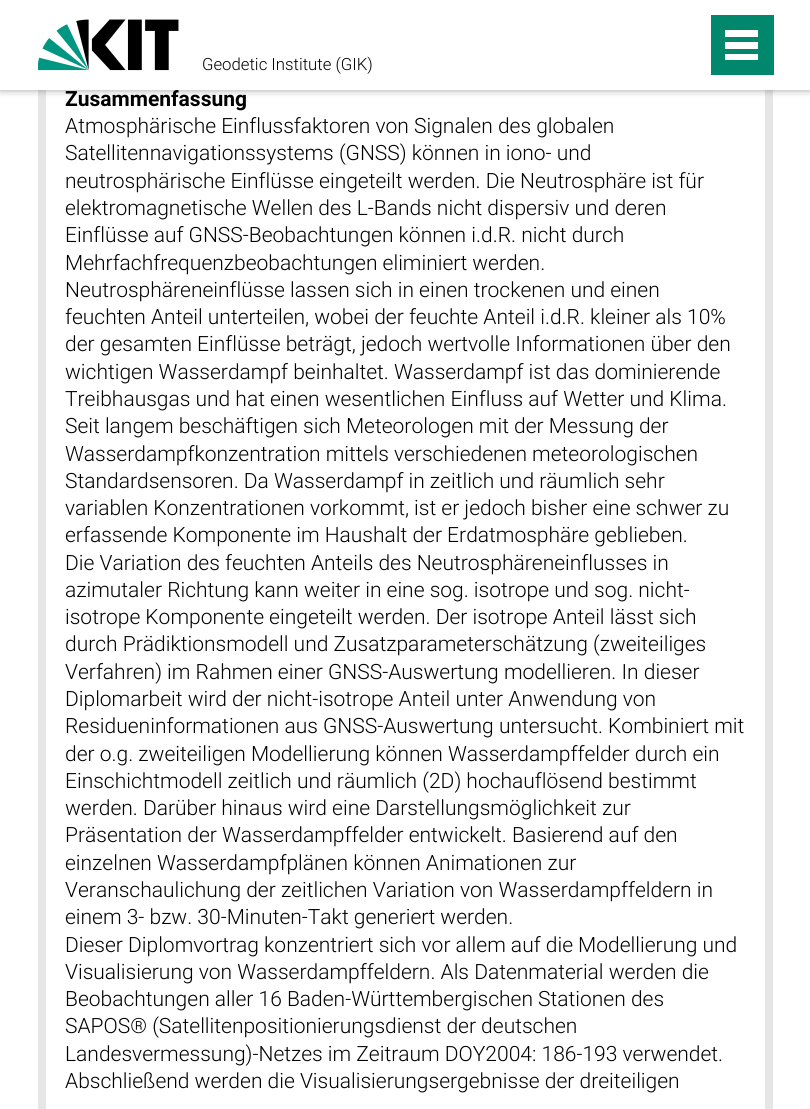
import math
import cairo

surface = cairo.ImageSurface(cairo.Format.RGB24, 810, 1109)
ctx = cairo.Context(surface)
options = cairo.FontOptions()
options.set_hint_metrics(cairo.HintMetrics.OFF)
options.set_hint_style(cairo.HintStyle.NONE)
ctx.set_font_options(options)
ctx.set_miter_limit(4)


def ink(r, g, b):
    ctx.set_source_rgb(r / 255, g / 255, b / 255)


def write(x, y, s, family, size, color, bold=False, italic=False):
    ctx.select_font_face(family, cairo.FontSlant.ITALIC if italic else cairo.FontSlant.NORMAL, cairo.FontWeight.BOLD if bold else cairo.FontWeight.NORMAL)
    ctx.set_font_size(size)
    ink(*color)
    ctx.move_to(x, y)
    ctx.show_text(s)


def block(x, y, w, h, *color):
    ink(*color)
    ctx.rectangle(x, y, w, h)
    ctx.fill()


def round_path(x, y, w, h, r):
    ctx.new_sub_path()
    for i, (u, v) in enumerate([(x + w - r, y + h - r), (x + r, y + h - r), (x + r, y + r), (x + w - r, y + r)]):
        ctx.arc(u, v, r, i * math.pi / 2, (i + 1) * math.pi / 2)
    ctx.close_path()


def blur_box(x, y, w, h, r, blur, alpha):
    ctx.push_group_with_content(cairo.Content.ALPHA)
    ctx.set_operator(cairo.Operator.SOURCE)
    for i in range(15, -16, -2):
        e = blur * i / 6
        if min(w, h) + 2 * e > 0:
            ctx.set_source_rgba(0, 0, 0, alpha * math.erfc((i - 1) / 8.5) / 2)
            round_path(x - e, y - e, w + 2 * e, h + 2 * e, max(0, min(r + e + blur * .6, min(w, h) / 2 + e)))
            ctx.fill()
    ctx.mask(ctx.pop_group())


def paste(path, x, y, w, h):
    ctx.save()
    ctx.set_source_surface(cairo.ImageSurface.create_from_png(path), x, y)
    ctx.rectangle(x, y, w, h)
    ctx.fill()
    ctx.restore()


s1 = dict(family="Roboto Light", size=16.75, color=(0, 0, 0))
s2 = dict(family="Roboto", size=21, color=(0, 0, 0), bold=True)
s3 = dict(family="Roboto Light", size=21, color=(0, 0, 0))

ink(255, 255, 255)
ctx.paint()
ctx.rectangle(42, -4, 727, 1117)
ink(230, 230, 230)
ctx.set_line_width(8)
ctx.stroke()
ink(64, 64, 64)
blur_box(0, 0, 810, 90, 0, 4, 0.5)
block(0, 0, 810, 90, 255, 255, 255)
paste("pic1.png", 38, 19, 141, 52)
write(202, 70, "Geodetic Institute (GIK)", **s1)
block(711, 15, 63, 60, 0, 135, 108)
block(725, 54, 33, 6, 255, 255, 255)
block(725, 42, 33, 7, 255, 255, 255)
block(725, 30, 33, 7, 255, 255, 255)
write(65, 106, "Zusammenfassung", **s2)
write(65, 133, "Atmosphärische Einflussfaktoren von Signalen des globalen", **s3)
write(65, 160, "Satellitennavigationssystems (GNSS) können in iono- und", **s3)
write(65, 188, "neutrosphärische Einflüsse eingeteilt werden. Die Neutrosphäre ist für", **s3)
write(65, 215, "elektromagnetische Wellen des L-Bands nicht dispersiv und deren", **s3)
write(65, 242, "Einflüsse auf GNSS-Beobachtungen können i.d.R. nicht durch", **s3)
write(65, 270, "Mehrfachfrequenzbeobachtungen eliminiert werden.", **s3)
write(65, 297, "Neutrosphäreneinflüsse lassen sich in einen trockenen und einen", **s3)
write(65, 324, "feuchten Anteil unterteilen, wobei der feuchte Anteil i.d.R. kleiner als 10%", **s3)
write(65, 351, "der gesamten Einflüsse beträgt, jedoch wertvolle Informationen über den", **s3)
write(65, 379, "wichtigen Wasserdampf beinhaltet. Wasserdampf ist das dominierende", **s3)
write(65, 406, "Treibhausgas und hat einen wesentlichen Einfluss auf Wetter und Klima.", **s3)
write(65, 433, "Seit langem beschäftigen sich Meteorologen mit der Messung der", **s3)
write(65, 461, "Wasserdampfkonzentration mittels verschiedenen meteorologischen", **s3)
write(65, 488, "Standardsensoren. Da Wasserdampf in zeitlich und räumlich sehr", **s3)
write(65, 515, "variablen Konzentrationen vorkommt, ist er jedoch bisher eine schwer zu", **s3)
write(65, 542, "erfassende Komponente im Haushalt der Erdatmosphäre geblieben.", **s3)
write(65, 570, "Die Variation des feuchten Anteils des Neutrosphäreneinflusses in", **s3)
write(65, 597, "azimutaler Richtung kann weiter in eine sog. isotrope und sog. nicht-", **s3)
write(65, 624, "isotrope Komponente eingeteilt werden. Der isotrope Anteil lässt sich", **s3)
write(65, 651, "durch Prädiktionsmodell und Zusatzparameterschätzung (zweiteiliges", **s3)
write(65, 679, "Verfahren) im Rahmen einer GNSS-Auswertung modellieren. In dieser", **s3)
write(65, 706, "Diplomarbeit wird der nicht-isotrope Anteil unter Anwendung von", **s3)
write(65, 733, "Residueninformationen aus GNSS-Auswertung untersucht. Kombiniert mit", **s3)
write(65, 761, "der o.g. zweiteiligen Modellierung können Wasserdampffelder durch ein", **s3)
write(65, 788, "Einschichtmodell zeitlich und räumlich (2D) hochauflösend bestimmt", **s3)
write(65, 815, "werden. Darüber hinaus wird eine Darstellungsmöglichkeit zur", **s3)
write(65, 842, "Präsentation der Wasserdampffelder entwickelt. Basierend auf den", **s3)
write(65, 870, "einzelnen Wasserdampfplänen können Animationen zur", **s3)
write(65, 897, "Veranschaulichung der zeitlichen Variation von Wasserdampffeldern in", **s3)
write(65, 924, "einem 3- bzw. 30-Minuten-Takt generiert werden.", **s3)
write(65, 952, "Dieser Diplomvortrag konzentriert sich vor allem auf die Modellierung und", **s3)
write(65, 979, "Visualisierung von Wasserdampffeldern. Als Datenmaterial werden die", **s3)
write(65, 1006, "Beobachtungen aller 16 Baden-Württembergischen Stationen des", **s3)
write(65, 1033, "SAPOS® (Satellitenpositionierungsdienst der deutschen", **s3)
write(65, 1061, "Landesvermessung)-Netzes im Zeitraum DOY2004: 186-193 verwendet.", **s3)
write(65, 1088, "Abschließend werden die Visualisierungsergebnisse der dreiteiligen", **s3)
surface.write_to_png("screenshot.png")
